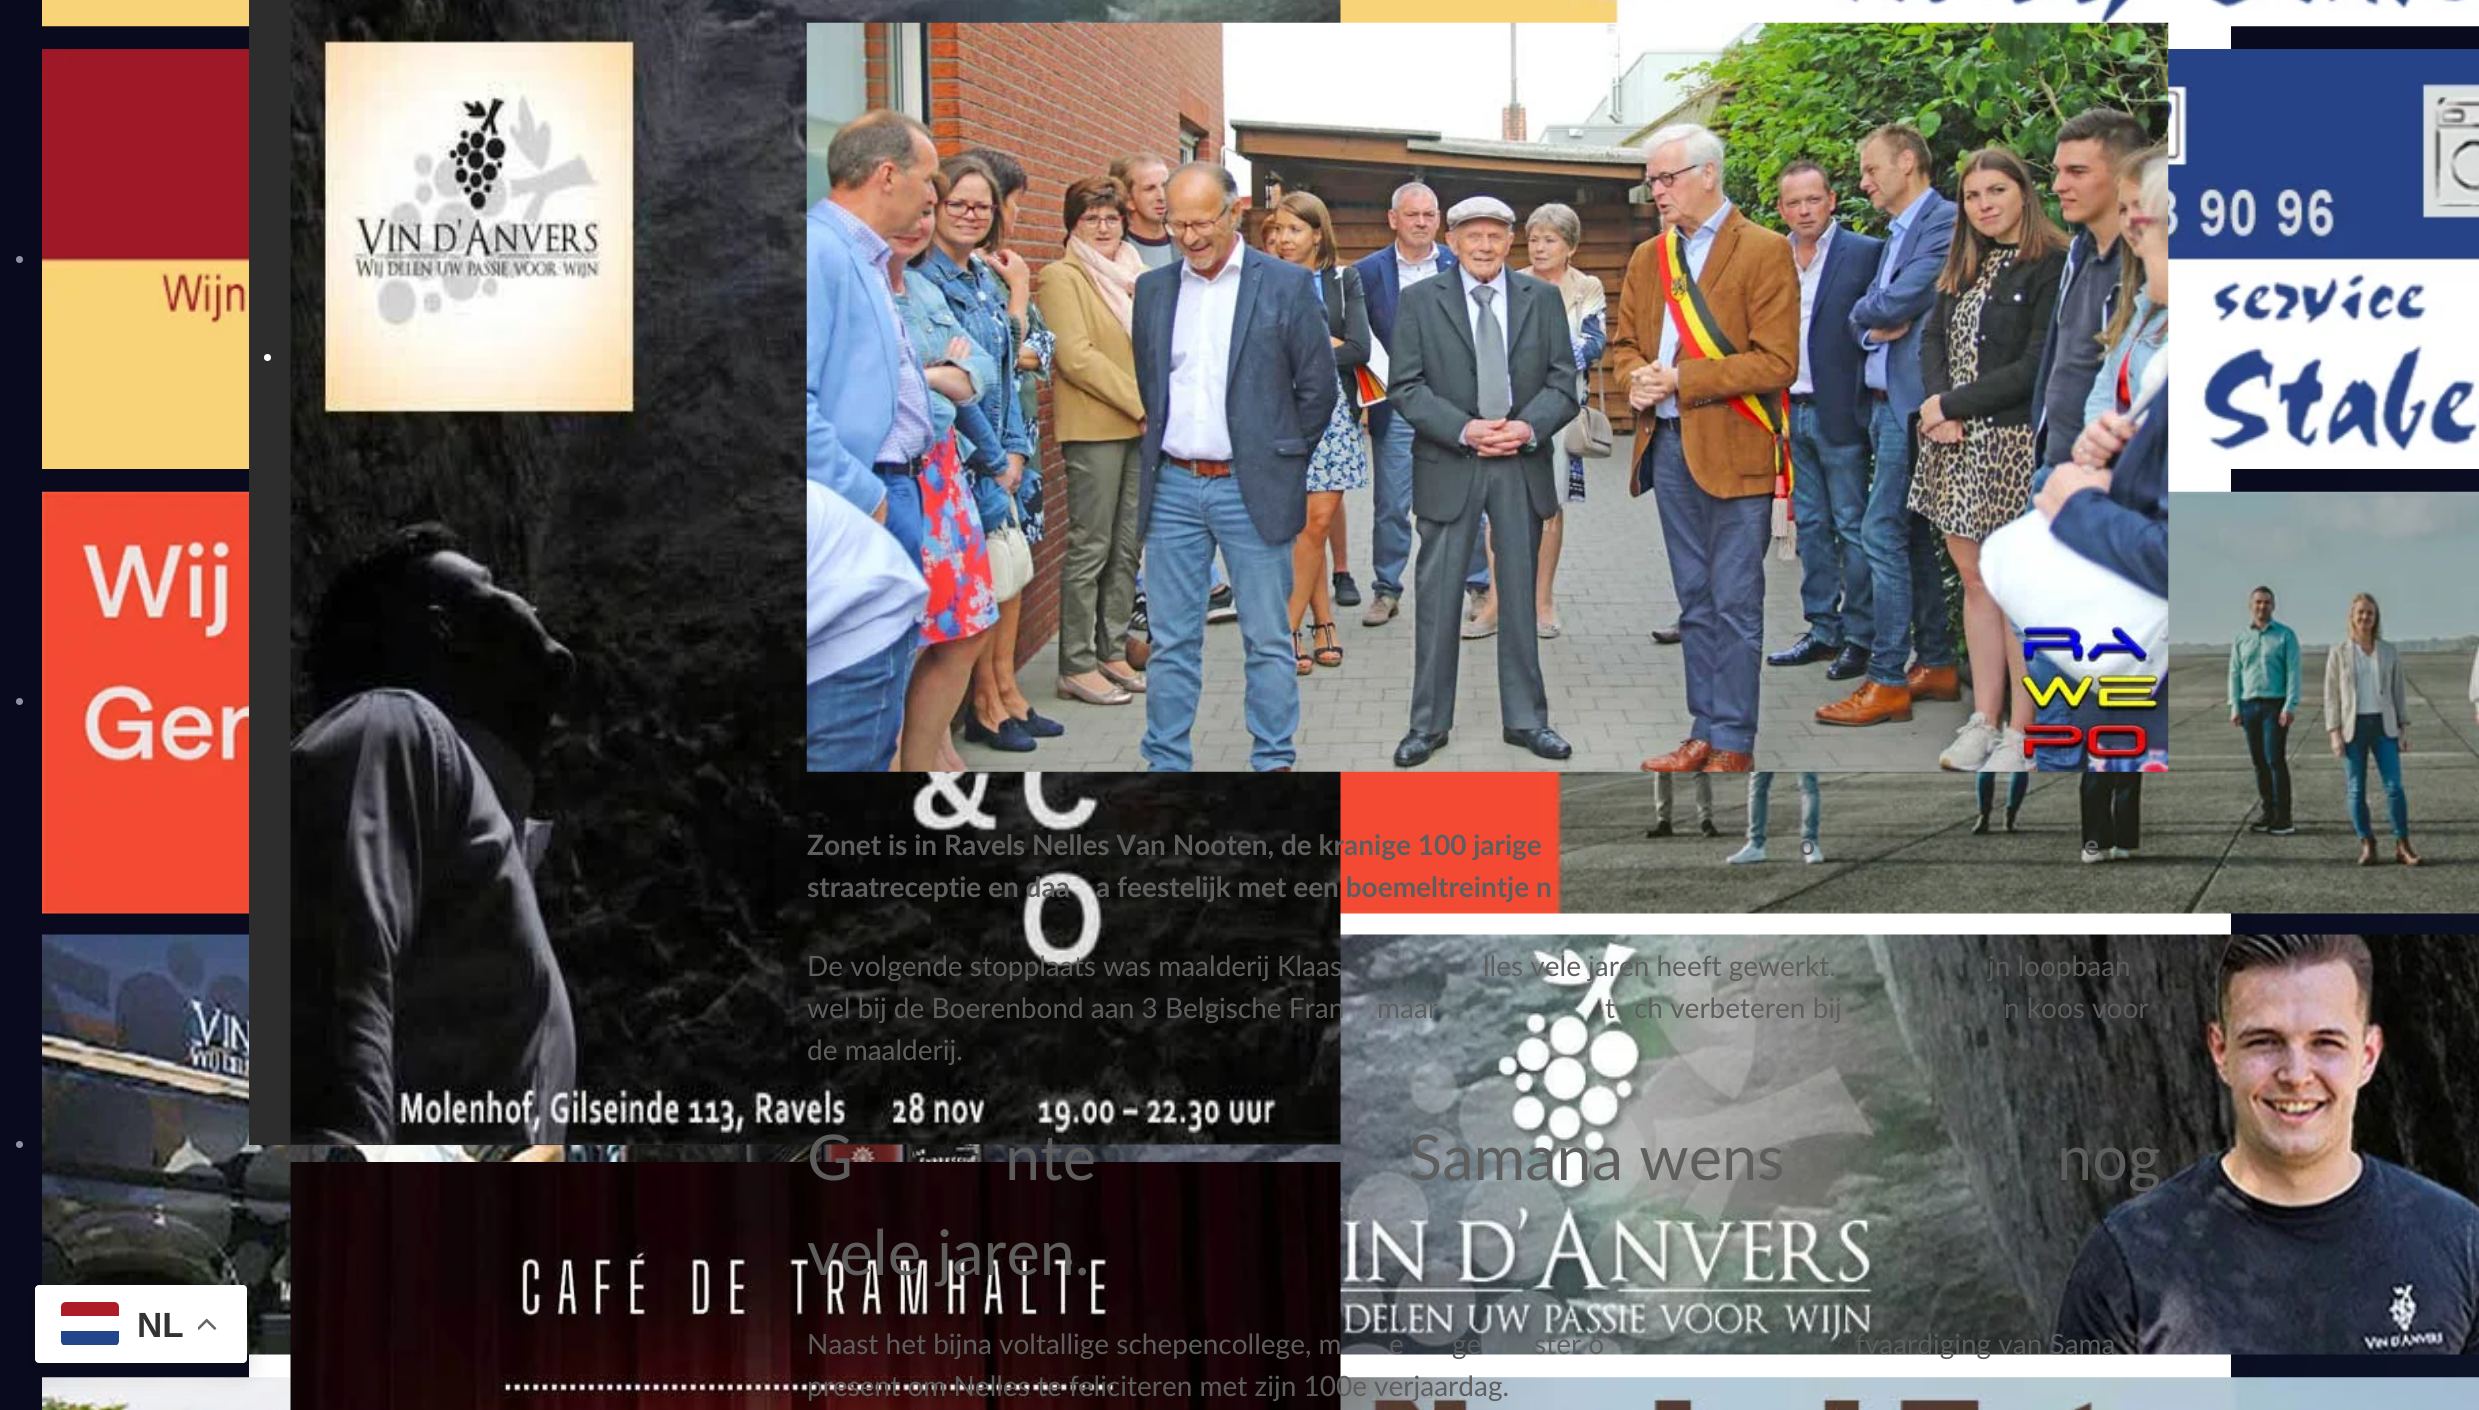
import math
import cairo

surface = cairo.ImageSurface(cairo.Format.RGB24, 2479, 1410)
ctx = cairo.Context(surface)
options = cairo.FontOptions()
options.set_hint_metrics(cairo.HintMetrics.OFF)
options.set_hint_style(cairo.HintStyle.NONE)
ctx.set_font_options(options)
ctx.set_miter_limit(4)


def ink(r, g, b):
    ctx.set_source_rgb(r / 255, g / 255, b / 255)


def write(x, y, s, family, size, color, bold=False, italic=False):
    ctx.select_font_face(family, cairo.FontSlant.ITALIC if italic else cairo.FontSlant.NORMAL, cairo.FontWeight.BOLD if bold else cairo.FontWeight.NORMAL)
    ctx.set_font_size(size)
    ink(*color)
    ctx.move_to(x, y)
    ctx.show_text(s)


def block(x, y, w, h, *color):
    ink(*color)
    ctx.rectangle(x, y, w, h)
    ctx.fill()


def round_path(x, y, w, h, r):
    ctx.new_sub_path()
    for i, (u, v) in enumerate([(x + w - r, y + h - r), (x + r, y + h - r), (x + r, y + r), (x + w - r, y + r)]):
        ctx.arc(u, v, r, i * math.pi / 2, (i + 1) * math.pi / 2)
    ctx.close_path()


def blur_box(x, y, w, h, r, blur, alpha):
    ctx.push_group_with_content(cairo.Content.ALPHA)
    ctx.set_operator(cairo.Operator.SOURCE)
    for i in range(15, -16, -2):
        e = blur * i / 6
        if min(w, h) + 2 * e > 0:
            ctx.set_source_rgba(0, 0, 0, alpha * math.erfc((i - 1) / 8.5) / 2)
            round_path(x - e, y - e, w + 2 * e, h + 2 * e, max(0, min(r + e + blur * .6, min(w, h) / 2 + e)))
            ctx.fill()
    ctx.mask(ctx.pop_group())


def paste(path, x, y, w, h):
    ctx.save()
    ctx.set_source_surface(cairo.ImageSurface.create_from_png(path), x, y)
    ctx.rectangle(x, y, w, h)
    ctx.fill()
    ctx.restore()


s1 = dict(family="Liberation Sans", size=35, color=(51, 51, 51), bold=True)
s2 = dict(family="Lato", size=28, color=(94, 94, 94), bold=True)
s3 = dict(family="Lato", size=28, color=(94, 94, 94))
s4 = dict(family="Lato", size=63, color=(94, 94, 94))

ink(255, 255, 255)
ctx.paint()
gradient = cairo.LinearGradient(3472, 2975, -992, 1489)
gradient.add_color_stop_rgba(0, 0.09, 0.192, 0.259, 1)
gradient.add_color_stop_rgba(0.4, 0.035, 0.039, 0.118, 1)
ctx.set_source(gradient)
ctx.rectangle(0, 0, 2479, 1410)
ctx.fill()
block(249, 26, 1982, 1352, 255, 255, 255)
paste("pic1.png", 42, 0, 2437, 27)
ink(144, 145, 162)
ctx.arc(19.5, 259.5, 3.5, 0, 2 * math.pi)
ctx.fill()
paste("pic2.png", 42, 49, 2437, 420)
ctx.arc(19.5, 701.5, 3.5, 0, 2 * math.pi)
ctx.fill()
paste("pic3.png", 42, 491, 2437, 423)
ctx.arc(19.5, 1144.5, 3.5, 0, 2 * math.pi)
ctx.fill()
paste("pic4.png", 42, 934, 2437, 421)
paste("pic5.png", 42, 1377, 2437, 33)
ink(0, 0, 0)
blur_box(35, 1293, 212, 79, 4, 13, 0.15)
ink(255, 255, 255)
round_path(35, 1285, 212, 78, 4)
ctx.fill()
ctx.save()
round_path(61, 1302, 58, 44, 5)
ctx.clip()
block(61, 1331, 58, 14, 33, 70, 139)
ctx.restore()
ink(174, 28, 40)
ctx.new_path()
ctx.move_to(66, 1302)
ctx.line_to(114, 1302)
ctx.curve_to(117, 1302, 119, 1304, 119, 1307)
ctx.line_to(119, 1316)
ctx.line_to(61, 1316)
ctx.line_to(61, 1307)
ctx.curve_to(61, 1304, 63, 1302, 66, 1302)
ctx.close_path()
ctx.fill()
write(137, 1337, "NL", **s1)
paste("pic6.png", 198, 1318, 19, 12)
block(249, 0, 495, 1145, 45, 45, 45)
ink(255, 255, 255)
ctx.arc(267.5, 357.5, 3.5, 0, 2 * math.pi)
ctx.fill()
paste("pic7.png", 290, 0, 1051, 1145)
paste("pic8.png", 290, 1162, 1051, 248)
paste("pic9.png", 806, 22, 1363, 750)
write(807, 855, "Zonet is in Ravels Nelles Van Nooten, de kranige 100 jarige", **s2)
write(1799, 855, "o", **s2)
write(2084, 855, "e", **s2)
write(807, 897, "straatreceptie en daa", **s2)
write(1096, 897, "a feestelijk met een boemeltreintje n", **s2)
write(807, 976, "De volgende stopplaats was maalderij Klaas", **s3)
write(1483, 976, "lles vele jaren heeft gewerkt.", **s3)
write(1988, 976, "jn loopbaan", **s3)
write(807, 1018, "wel bij de Boerenbond aan 3 Belgische Fran", **s3)
write(1377, 1018, "maar", **s3)
write(1605, 1018, "t", **s3)
write(1634, 1018, "ch verbeteren bij", **s3)
write(2004, 1018, "n koos voor", **s3)
write(807, 1060, "de maalderij.", **s3)
write(807, 1180, "G", **s4)
write(1005, 1180, "nte", **s4)
write(1408, 1180, "Samana wens", **s4)
write(2057, 1180, "nog", **s4)
write(807, 1275, "vele jaren.", **s4)
write(807, 1354, "Naast het bijna voltallige schepencollege, m", **s3)
write(1389, 1354, "e", **s3)
write(1452, 1354, "ge", **s3)
write(1534, 1354, "ster o", **s3)
write(1855, 1354, "fvaardiging van Sama", **s3)
write(807, 1396, "present om Nelles te feliciteren met zijn 100e verjaardag.", **s3)
surface.write_to_png("screenshot.png")
